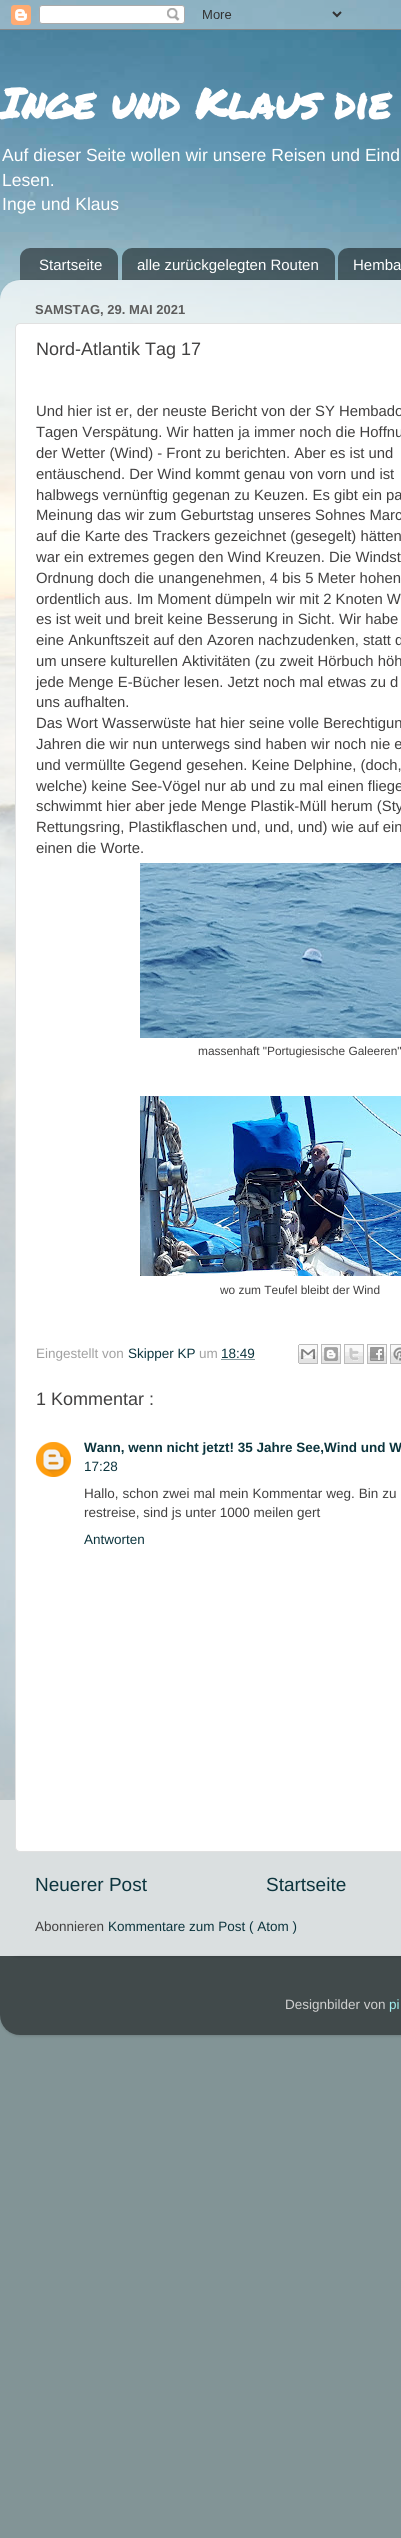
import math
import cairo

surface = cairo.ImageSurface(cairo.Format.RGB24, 401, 2538)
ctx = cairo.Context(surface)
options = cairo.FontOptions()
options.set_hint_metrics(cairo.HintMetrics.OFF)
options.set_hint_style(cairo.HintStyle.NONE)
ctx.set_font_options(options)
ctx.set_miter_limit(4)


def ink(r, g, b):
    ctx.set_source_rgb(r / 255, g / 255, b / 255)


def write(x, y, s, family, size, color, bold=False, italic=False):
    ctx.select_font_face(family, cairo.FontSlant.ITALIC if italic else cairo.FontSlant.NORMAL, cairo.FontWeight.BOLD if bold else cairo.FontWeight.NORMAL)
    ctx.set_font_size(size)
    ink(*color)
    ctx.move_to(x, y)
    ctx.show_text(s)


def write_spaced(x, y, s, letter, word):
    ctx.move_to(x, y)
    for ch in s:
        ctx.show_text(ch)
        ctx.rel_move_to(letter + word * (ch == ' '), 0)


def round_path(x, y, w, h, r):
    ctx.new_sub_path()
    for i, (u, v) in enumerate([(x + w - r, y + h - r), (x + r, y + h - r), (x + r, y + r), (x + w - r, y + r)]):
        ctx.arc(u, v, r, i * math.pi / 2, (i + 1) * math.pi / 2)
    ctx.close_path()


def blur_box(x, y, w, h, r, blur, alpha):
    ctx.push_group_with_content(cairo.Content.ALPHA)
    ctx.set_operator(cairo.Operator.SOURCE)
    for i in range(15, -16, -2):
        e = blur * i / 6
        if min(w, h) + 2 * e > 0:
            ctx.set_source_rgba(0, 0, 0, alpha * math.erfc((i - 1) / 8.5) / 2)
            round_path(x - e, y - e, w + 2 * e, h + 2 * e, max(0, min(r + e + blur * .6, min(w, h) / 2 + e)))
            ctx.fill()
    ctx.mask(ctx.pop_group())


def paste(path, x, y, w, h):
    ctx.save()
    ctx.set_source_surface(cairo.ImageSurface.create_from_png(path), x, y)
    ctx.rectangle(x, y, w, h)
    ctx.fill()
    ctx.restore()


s1 = dict(family="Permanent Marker", size=42, color=(255, 255, 255), bold=True)
s2 = dict(family="Liberation Sans", size=17.55, color=(255, 255, 255))
s3 = dict(family="Liberation Sans", size=15, color=(255, 255, 255))
s4 = dict(family="Liberation Sans", size=13, color=(92, 92, 92), bold=True)
s5 = dict(family="Liberation Sans", size=18, color=(65, 64, 64))
s6 = dict(family="Liberation Sans", size=14.85, color=(65, 64, 64))
s7 = dict(family="Liberation Sans", size=11.9, color=(65, 64, 64))
s8 = dict(family="Liberation Sans", size=13.5, color=(161, 161, 161))
s9 = dict(family="Liberation Sans", size=13.5, color=(12, 52, 61))
s10 = dict(family="Liberation Sans", size=13.5, color=(12, 52, 61), bold=True)
s11 = dict(family="Liberation Sans", size=13.5, color=(65, 64, 64))
s12 = dict(family="Liberation Sans", size=19, color=(12, 52, 61))
s13 = dict(family="Liberation Sans", size=13.5, color=(209, 209, 209))
s14 = dict(family="Liberation Sans", size=13.5, color=(162, 239, 239))

ink(130, 148, 150)
ctx.paint()
paste("pic1.png", 0, 0, 401, 1800)
paste("pic2.png", 0, 0, 401, 30)
write(0, 119, "Inge und Klaus die", **s1)
write(2, 161, "Auf dieser Seite wollen wir unsere Reisen und Eind", **s2)
write(2, 186, "Lesen.", **s2)
write(2, 210, "Inge und Klaus", **s2)
paste("pic3.png", 20, 248, 98, 32)
write(39, 270, "Startseite", **s3)
paste("pic4.png", 122, 248, 213, 32)
write(137, 270, "alle zurückgelegten Routen", **s3)
paste("pic5.png", 338, 248, 63, 32)
write(353, 270, "Hemba", **s3)
ctx.save()
ctx.set_fill_rule(cairo.FillRule.EVEN_ODD)
ctx.new_path()
ctx.move_to(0, 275)
ctx.line_to(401, 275)
ctx.line_to(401, 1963)
ctx.line_to(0, 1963)
ctx.close_path()
ctx.move_to(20, 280)
ctx.line_to(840, 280)
ctx.curve_to(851, 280, 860, 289, 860, 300)
ctx.line_to(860, 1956)
ctx.line_to(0, 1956)
ctx.line_to(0, 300)
ctx.curve_to(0, 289, 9, 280, 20, 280)
ctx.close_path()
ctx.clip()
ink(0, 0, 0)
blur_box(0, 281, 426, 1676, 20, 1.5, 0.15)
ctx.restore()
paste("pic6.png", 0, 280, 401, 1676)
write(35, 314, "SAMSTAG, 29. MAI 2021", **s4)
ink(255, 255, 255)
round_path(15.5, 323.5, 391, 1528, 4.5)
ctx.fill_preserve()
ink(225, 225, 225)
ctx.set_line_width(1)
ctx.stroke()
write(36, 355, "Nord-Atlantik Tag 17", **s5)
write(36, 416, "Und hier ist er, der neuste Bericht von der SY Hembado", **s6)
write(36, 437, "Tagen Verspätung. Wir hatten ja immer noch die Hoffnu", **s6)
write(36, 458, "der Wetter (Wind) - Front zu berichten. Aber es ist und", **s6)
write(36, 479, "entäuschend. Der Wind kommt genau von vorn und ist", **s6)
write(36, 500, "halbwegs vernünftig gegenan zu Keuzen. Es gibt ein pa", **s6)
write(36, 520, "Meinung das wir zum Geburtstag unseres Sohnes Marc", **s6)
write(36, 541, "auf die Karte des Trackers gezeichnet (gesegelt) hätten", **s6)
write(36, 562, "war ein extremes gegen den Wind Kreuzen. Die Windst", **s6)
write(36, 583, "Ordnung doch die unangenehmen, 4 bis 5 Meter hohen", **s6)
write(36, 604, "ordentlich aus. Im Moment dümpeln wir mit 2 Knoten W", **s6)
write(36, 624, "es ist weit und breit keine Besserung in Sicht. Wir habe", **s6)
write(36, 645, "eine Ankunftszeit auf den Azoren nachzudenken, statt d", **s6)
write(36, 666, "um unsere kulturellen Aktivitäten (zu zweit Hörbuch höh", **s6)
write(36, 687, "jede Menge E-Bücher lesen. Jetzt noch mal etwas zu d", **s6)
write(36, 707, "uns aufhalten.", **s6)
write(36, 728, "Das Wort Wasserwüste hat hier seine volle Berechtigun", **s6)
write(36, 749, "Jahren die wir nun unterwegs sind haben wir noch nie e", **s6)
write(36, 770, "und vermüllte Gegend gesehen. Keine Delphine, (doch,", **s6)
write(36, 791, "welche) keine See-Vögel nur ab und zu mal einen fliege", **s6)
write(36, 811, "schwimmt hier aber jede Menge Plastik-Müll herum (Sty", **s6)
write(36, 832, "Rettungsring, Plastikflaschen und, und, und) wie auf ein", **s6)
write(36, 853, "einen die Worte.", **s6)
paste("pic7.png", 140, 863, 261, 175)
write(198, 1055, "massenhaft \"Portugiesische Galeeren\"", **s7)
paste("pic8.png", 140, 1096, 261, 180)
write(220, 1294, "wo zum Teufel bleibt der Wind", **s7)
write(36, 1358, "Eingestellt von", **s8)
write(128, 1358, "Skipper KP", **s9)
write(199, 1358, "um", **s8)
write(221, 1358, "18:49", **s9)
ctx.new_path()
ctx.move_to(221.5, 1359.5)
ctx.line_to(255, 1359.5)
ctx.set_dash([1, 1])
ctx.stroke()
paste("pic9.png", 298, 1344, 20, 20)
paste("pic10.png", 321, 1344, 20, 20)
paste("pic11.png", 344, 1344, 20, 20)
paste("pic12.png", 367, 1344, 20, 20)
paste("pic13.png", 390, 1344, 11, 20)
write(36, 1405, "1 Kommentar :", **s5)
paste("pic14.png", 36, 1442, 35, 35)
write(84, 1452, "Wann, wenn nicht jetzt! 35 Jahre See,Wind und W", **s10)
write(84, 1471, "17:28", **s9)
ink(65, 64, 64)
write_spaced(84, 1498, "Hallo, schon zwei mal mein Kommentar weg. Bin zu", 0, 0.25)
write(84, 1517, "restreise, sind js unter 1000 meilen gert", **s11)
write(84, 1544, "Antworten", **s9)
write(35, 1891, "Neuerer Post", **s12)
write(266, 1891, "Startseite", **s12)
write(35, 1931, "Abonnieren", **s11)
write(108, 1931, "Kommentare zum Post ( Atom )", **s9)
ctx.save()
ctx.set_fill_rule(cairo.FillRule.EVEN_ODD)
ctx.new_path()
ctx.move_to(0, 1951)
ctx.line_to(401, 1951)
ctx.line_to(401, 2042)
ctx.line_to(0, 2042)
ctx.close_path()
ctx.move_to(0, 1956)
ctx.line_to(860, 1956)
ctx.line_to(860, 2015)
ctx.curve_to(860, 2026, 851, 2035, 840, 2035)
ctx.line_to(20, 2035)
ctx.curve_to(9, 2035, 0, 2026, 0, 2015)
ctx.close_path()
ctx.clip()
ink(0, 0, 0)
blur_box(0, 1957, 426, 79, 20, 1.5, 0.15)
ctx.restore()
paste("pic15.png", 0, 1956, 401, 79)
write(285, 2009, "Designbilder von", **s13)
write(389, 2009, "pi", **s14)
surface.write_to_png("screenshot.png")
